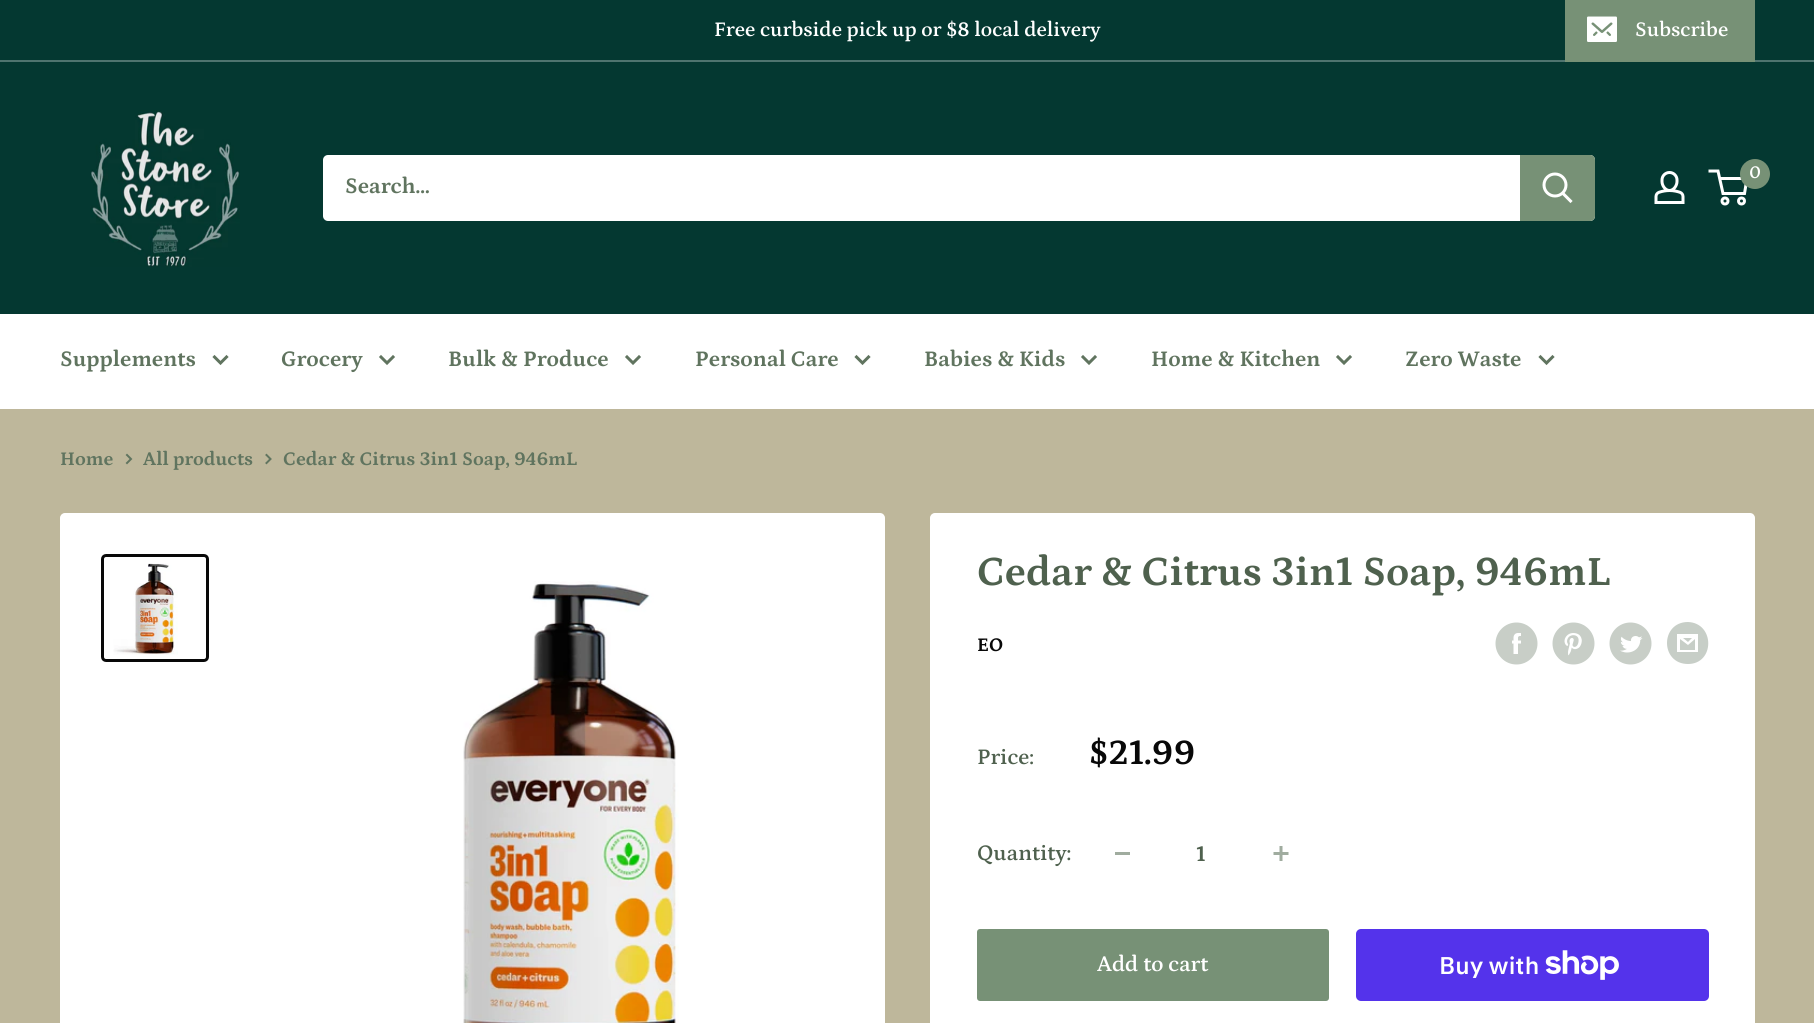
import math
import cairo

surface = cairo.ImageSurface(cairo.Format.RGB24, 1814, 1023)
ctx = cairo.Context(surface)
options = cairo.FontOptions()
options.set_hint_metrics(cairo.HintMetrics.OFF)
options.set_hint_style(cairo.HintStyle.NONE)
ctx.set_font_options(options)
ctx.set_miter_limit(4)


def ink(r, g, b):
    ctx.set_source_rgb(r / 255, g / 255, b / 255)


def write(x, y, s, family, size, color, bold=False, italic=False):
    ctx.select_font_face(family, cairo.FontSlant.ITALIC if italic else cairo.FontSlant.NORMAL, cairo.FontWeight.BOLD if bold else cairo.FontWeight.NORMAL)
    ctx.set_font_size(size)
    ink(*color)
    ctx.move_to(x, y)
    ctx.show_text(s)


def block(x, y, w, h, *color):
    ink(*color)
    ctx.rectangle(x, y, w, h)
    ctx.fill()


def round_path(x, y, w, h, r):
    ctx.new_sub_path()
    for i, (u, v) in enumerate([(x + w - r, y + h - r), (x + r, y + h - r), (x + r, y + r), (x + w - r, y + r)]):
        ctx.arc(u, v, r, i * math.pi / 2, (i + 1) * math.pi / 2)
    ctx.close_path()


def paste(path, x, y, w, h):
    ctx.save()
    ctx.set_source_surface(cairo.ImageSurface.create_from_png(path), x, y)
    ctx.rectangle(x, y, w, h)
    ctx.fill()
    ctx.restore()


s1 = dict(family="Petrona SemiBold", size=21, color=(255, 255, 255))
s2 = dict(family="Petrona SemiBold", size=18, color=(255, 255, 255))
s3 = dict(family="Petrona", size=22.5, color=(96, 116, 95), bold=True)
s4 = dict(family="Petrona", size=19.5, color=(96, 116, 95), bold=True)
s5 = dict(family="Petrona", size=42, color=(79, 97, 78), bold=True)
s6 = dict(family="Petrona", size=19.5, color=(8, 8, 8), bold=True)
s7 = dict(family="Petrona SemiBold", size=22.5, color=(79, 97, 78))
s8 = dict(family="Petrona", size=36, color=(8, 8, 8), bold=True)
s9 = dict(family="Petrona", size=22.5, color=(79, 97, 78), bold=True)
s10 = dict(family="Petrona SemiBold", size=22.5, color=(255, 255, 255))
s11 = dict(family="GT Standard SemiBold", size=24, color=(255, 255, 255))

ink(190, 183, 155)
ctx.paint()
block(0, 0, 1814, 60, 4, 56, 49)
block(0, 60, 1814, 2, 79, 116, 111)
write(714, 36, "Free curbside pick up or $8 local delivery", **s1)
block(1565, 0, 190, 62, 119, 145, 118)
paste("pic1.png", 1587, 16, 30, 26)
write(1635, 36, "Subscribe", **s1)
block(0, 62, 1814, 252, 4, 56, 49)
paste("pic2.png", 90, 110, 150, 157)
paste("pic3.png", 1654, 171, 31, 33)
ctx.arc(1725, 201, 3, 0, 2 * math.pi)
ink(255, 255, 255)
ctx.set_line_width(3)
ctx.stroke()
ctx.arc(1741.5, 201, 3, 0, 2 * math.pi)
ctx.stroke()
ctx.new_path()
ctx.move_to(1719.5, 178.5)
ctx.line_to(1747, 178.5)
ctx.line_to(1744.5, 193.5)
ctx.line_to(1723, 193.5)
ctx.line_to(1718, 171)
ctx.line_to(1708.5, 171)
ctx.stroke()
ink(119, 145, 118)
ctx.arc(1755, 174, 15, 0, 2 * math.pi)
ctx.fill()
write(1749, 178, "0", **s2)
round_path(323, 155, 1272, 66, 5)
ctx.fill()
write(345, 193, "Search...", **s3)
ink(119, 145, 118)
ctx.new_path()
ctx.move_to(1520, 155)
ctx.line_to(1590, 155)
ctx.curve_to(1593, 155, 1595, 157, 1595, 160)
ctx.line_to(1595, 216)
ctx.curve_to(1595, 219, 1593, 221, 1590, 221)
ctx.line_to(1520, 221)
ctx.close_path()
ctx.fill()
ctx.new_path()
ctx.move_to(1570.5, 201)
ctx.line_to(1563, 193.5)
ink(255, 255, 255)
ctx.set_line_cap(cairo.LineCap.SQUARE)
ctx.stroke()
ctx.arc(1555, 185, 11, 0, 2 * math.pi)
ctx.set_line_cap(cairo.LineCap.BUTT)
ctx.stroke()
block(0, 314, 1814, 95, 255, 255, 255)
write(60, 366, "Supplements", **s3)
ctx.new_path()
ctx.move_to(226.5, 357)
ctx.line_to(220.5, 363)
ctx.line_to(214.5, 357)
ctx.set_line_cap(cairo.LineCap.SQUARE)
ctx.stroke()
write(281, 366, "Grocery", **s3)
ctx.new_path()
ctx.move_to(393, 357)
ctx.line_to(387, 363)
ctx.line_to(381, 357)
ctx.stroke()
write(448, 366, "Bulk & Produce", **s3)
ctx.new_path()
ctx.move_to(639, 357)
ctx.line_to(633, 363)
ctx.line_to(627, 357)
ctx.stroke()
write(695, 366, "Personal Care", **s3)
ctx.new_path()
ctx.move_to(868.5, 357)
ctx.line_to(862.5, 363)
ctx.line_to(856.5, 357)
ctx.stroke()
write(924, 366, "Babies & Kids", **s3)
ctx.new_path()
ctx.move_to(1095, 357)
ctx.line_to(1089, 363)
ctx.line_to(1083, 357)
ctx.stroke()
write(1151, 366, "Home & Kitchen", **s3)
ctx.new_path()
ctx.move_to(1350, 357)
ctx.line_to(1344, 363)
ctx.line_to(1338, 357)
ctx.stroke()
write(1405, 366, "Zero Waste", **s3)
ctx.new_path()
ctx.move_to(1552.5, 357)
ctx.line_to(1546.5, 363)
ctx.line_to(1540.5, 357)
ctx.stroke()
write(60, 465, "Home", **s4)
ctx.new_path()
ctx.move_to(127, 455)
ctx.line_to(131, 459)
ctx.line_to(127, 463)
ctx.set_line_width(2)
ctx.stroke()
write(143, 465, "All products", **s4)
ctx.new_path()
ctx.move_to(266.5, 455)
ctx.line_to(270.5, 459)
ctx.line_to(266.5, 463)
ctx.stroke()
write(283, 465, "Cedar & Citrus 3in1 Soap, 946mL", **s4)
ink(255, 255, 255)
round_path(61, 514, 823, 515, 4)
ctx.fill_preserve()
ctx.set_line_cap(cairo.LineCap.BUTT)
ctx.stroke()
round_path(102.5, 555.5, 105, 105, 3.5)
ink(8, 8, 8)
ctx.set_line_width(3)
ctx.stroke()
paste("pic4.png", 113, 563, 65, 92)
paste("pic5.png", 463, 581, 216, 442)
ink(255, 255, 255)
round_path(931, 514, 823, 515, 4)
ctx.fill_preserve()
ctx.set_line_width(2)
ctx.stroke()
write(977, 585, "Cedar & Citrus 3in1 Soap, 946mL", **s5)
write(977, 651, "EO", **s6)
paste("pic6.png", 1495, 622, 43, 43)
paste("pic7.png", 1552, 622, 43, 43)
paste("pic8.png", 1609, 622, 43, 43)
ink(199, 206, 199)
ctx.new_path()
ctx.move_to(1688, 664)
ctx.curve_to(1660, 664, 1660, 622, 1688, 622)
ctx.curve_to(1715, 623, 1715, 664, 1688, 664)
ctx.close_path()
ctx.move_to(1683, 638)
ctx.line_to(1692, 638)
ctx.line_to(1688, 642)
ctx.close_path()
ctx.move_to(1695, 639)
ctx.line_to(1695, 650)
ctx.line_to(1680, 650)
ctx.line_to(1680, 639)
ctx.line_to(1688, 645)
ctx.close_path()
ctx.move_to(1698, 634)
ctx.line_to(1677, 634)
ctx.line_to(1677, 652)
ctx.line_to(1698, 652)
ctx.close_path()
ctx.fill()
write(977, 764, "Price:", **s7)
write(1089, 764, "$21.99", **s8)
write(977, 860, "Quantity:", **s7)
block(1115, 852, 15, 3, 160, 172, 159)
write(1196, 861, "1", **s9)
paste("pic9.png", 1273, 846, 16, 15)
ink(119, 145, 118)
round_path(977, 929, 352, 72, 3)
ctx.fill()
write(1097, 971, "Add to cart", **s10)
ink(84, 51, 235)
round_path(1356, 929, 353, 72, 5)
ctx.fill()
write(1439, 974, "Buy with", **s11)
paste("pic10.png", 1545, 950, 74, 30)
surface.write_to_png("screenshot.png")
